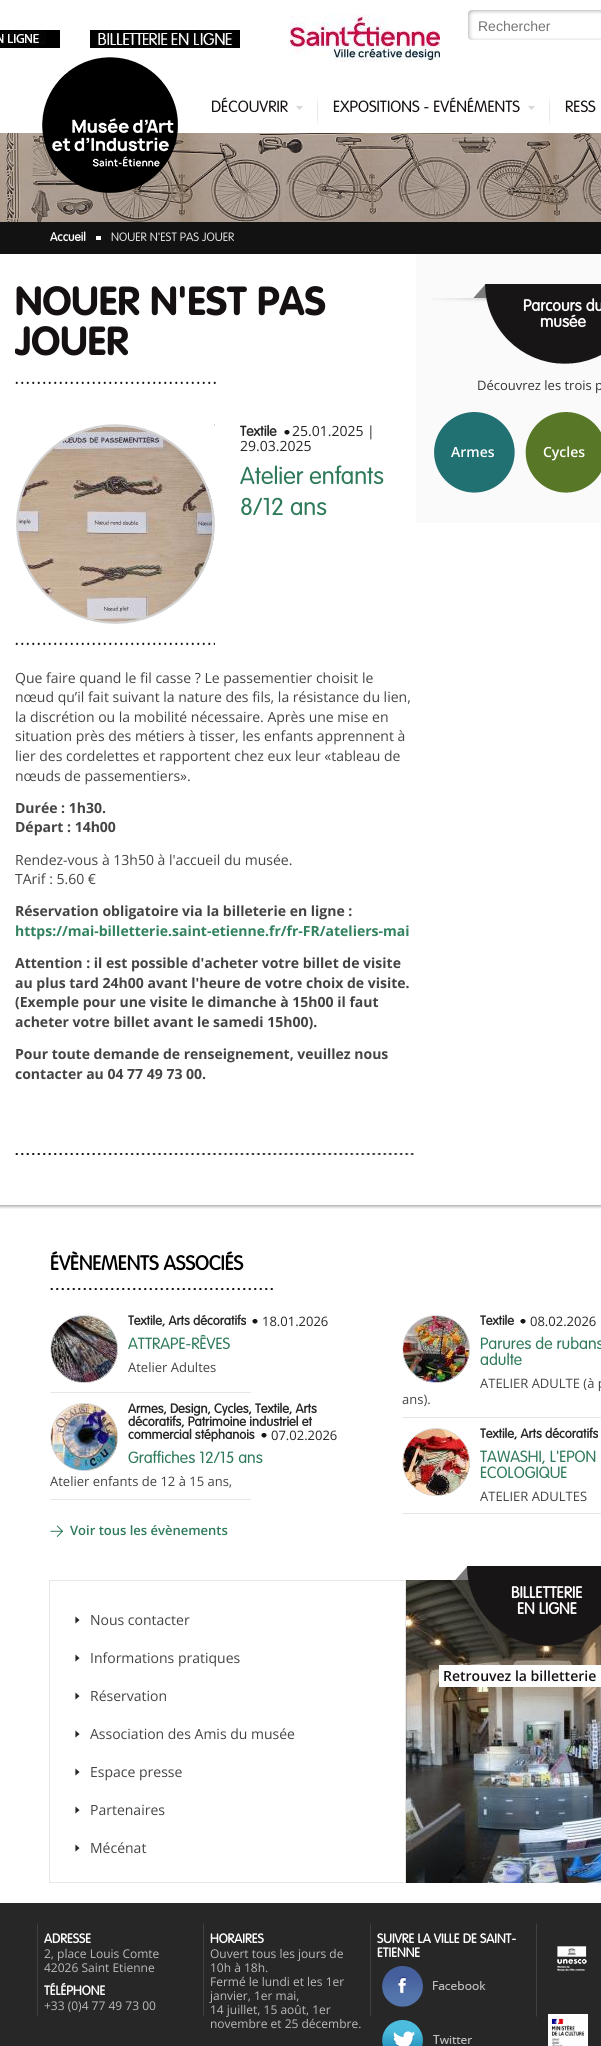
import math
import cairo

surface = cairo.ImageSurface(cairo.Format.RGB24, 601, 2046)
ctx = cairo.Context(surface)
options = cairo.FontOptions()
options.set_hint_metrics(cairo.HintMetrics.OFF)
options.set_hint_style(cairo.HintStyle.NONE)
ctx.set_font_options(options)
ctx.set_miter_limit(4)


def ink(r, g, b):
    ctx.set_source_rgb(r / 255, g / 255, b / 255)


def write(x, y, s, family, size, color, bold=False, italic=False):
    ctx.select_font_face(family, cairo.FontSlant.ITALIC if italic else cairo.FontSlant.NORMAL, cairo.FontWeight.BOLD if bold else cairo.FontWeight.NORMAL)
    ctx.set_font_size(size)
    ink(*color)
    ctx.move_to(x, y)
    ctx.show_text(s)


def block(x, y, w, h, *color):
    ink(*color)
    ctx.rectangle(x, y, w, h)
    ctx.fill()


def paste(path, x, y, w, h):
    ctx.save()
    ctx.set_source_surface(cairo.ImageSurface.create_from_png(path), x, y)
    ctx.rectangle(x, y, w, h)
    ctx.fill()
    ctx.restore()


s1 = dict(family="Liberation Sans", size=14, color=(117, 117, 117))
s2 = dict(family="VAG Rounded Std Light", size=16, color=(21, 17, 18))
s3 = dict(family="VAG Rounded Std", size=12, color=(255, 255, 255), bold=True)
s4 = dict(family="VAG Rounded Std Light", size=12, color=(221, 221, 221))
s5 = dict(family="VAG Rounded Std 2", size=40, color=(21, 17, 18), bold=True)
s6 = dict(family="VAG Rounded Std", size=14, color=(40, 38, 39), bold=True)
s7 = dict(family="Open Sans", size=14, color=(40, 38, 39))
s8 = dict(family="VAG Rounded Std Light", size=24, color=(46, 122, 90))
s9 = dict(family="Open Sans", size=14, color=(68, 68, 68))
s10 = dict(family="Open Sans", size=14, color=(68, 68, 68), bold=True)
s11 = dict(family="Open Sans", size=14, color=(50, 130, 95), bold=True)
s12 = dict(family="VAG Rounded Std", size=16, color=(255, 255, 255), bold=True)
s13 = dict(family="Open Sans", size=13, color=(51, 51, 51))
s14 = dict(family="Open Sans SemiBold", size=14, color=(255, 255, 255))
s15 = dict(family="VAG Rounded Std", size=20, color=(0, 0, 0), bold=True)
s16 = dict(family="VAG Rounded Std", size=13, color=(40, 38, 39), bold=True)
s17 = dict(family="Open Sans", size=13, color=(40, 38, 39))
s18 = dict(family="VAG Rounded Std Light", size=16, color=(46, 122, 90))
s19 = dict(family="Open Sans", size=13, color=(68, 68, 68))
s20 = dict(family="Open Sans SemiBold", size=13, color=(46, 122, 90))
s21 = dict(family="Open Sans SemiBold", size=14, color=(21, 17, 18))
s22 = dict(family="VAG Rounded Std", size=13, color=(255, 255, 255), bold=True)
s23 = dict(family="Open Sans", size=12, color=(187, 187, 187))

ink(255, 255, 255)
ctx.paint()
paste("pic1.png", 290, 14, 150, 48)
paste("pic2.png", 468, 10, 133, 30)
write(478, 31, "Rechercher", **s1)
paste("pic3.png", 0, 30, 60, 18)
paste("pic4.png", 90, 30, 150, 18)
paste("pic8.png", 0, 133, 601, 89)
paste("pic5.png", 42, 57, 136, 136)
paste("pic6.png", 317, 97, 1, 29)
write(211, 112, "DÉCOUVRIR", **s2)
paste("pic7.png", 296, 106, 7, 4)
paste("pic6.png", 549, 97, 1, 29)
write(333, 112, "EXPOSITIONS - EVÉNÉMENTS", **s2)
paste("pic7.png", 528, 106, 7, 4)
write(565, 112, "RESS", **s2)
block(0, 222, 601, 32, 18, 18, 18)
write(50, 241, "Accueil", **s3)
block(96, 236, 5, 4, 255, 255, 255)
write(111, 241, "NOUER N'EST PAS JOUER", **s4)
paste("pic9.png", 15, 381, 201, 3)
write(15, 315, "NOUER N'EST PAS", **s5)
ctx.save()
ctx.rectangle(15, 254, 399, 951)
ctx.clip()
write(15, 355, "JOUER", **s5)
ctx.restore()
paste("pic10.png", 15, 642, 200, 3)
paste("pic12.png", 17, 424, 198, 198)
paste("pic11.png", 15, 424, 200, 200)
write(240, 436, "Textile", **s6)
paste("pic13.png", 284, 430, 6, 5)
write(292, 436, "25.01.2025 |", **s7)
write(240, 451, "29.03.2025", **s7)
paste("pic14.png", 15, 1153, 399, 2)
write(240, 484, "Atelier enfants", **s8)
write(240, 515, "8/12 ans", **s8)
write(15, 683, "Que faire quand le fil casse ? Le passementier choisit le", **s9)
write(15, 702, "nœud qu’il fait suivant la nature des fils, la résistance du lien,", **s9)
write(15, 722, "la discrétion ou la mobilité nécessaire. Après une mise en", **s9)
write(15, 741, "situation près des métiers à tisser, les enfants apprennent à", **s9)
write(15, 761, "lier des cordelettes et rapportent chez eux leur «tableau de", **s9)
write(15, 781, "nœuds de passementiers».", **s9)
write(15, 813, "Durée : 1h30.", **s10)
write(15, 832, "Départ : 14h00", **s10)
write(15, 865, "Rendez-vous à 13h50 à l'accueil du musée.", **s9)
write(15, 884, "TArif : 5.60 €", **s9)
write(15, 916, "Réservation obligatoire via la billeterie en ligne :", **s10)
write(15, 936, "https://mai-billetterie.saint-etienne.fr/fr-FR/ateliers-mai", **s11)
write(15, 968, "Attention : il est possible d'acheter votre billet de visite", **s10)
write(15, 988, "au plus tard 24h00 avant l'heure de votre choix de visite.", **s10)
write(15, 1007, "(Exemple pour une visite le dimanche à 15h00 il faut", **s10)
write(15, 1027, "acheter votre billet avant le samedi 15h00).", **s10)
write(15, 1059, "Pour toute demande de renseignement, veuillez nous", **s10)
write(15, 1079, "contacter au 04 77 49 73 00.", **s10)
block(416, 254, 185, 269, 250, 250, 250)
paste("pic15.png", 431, 284, 170, 80)
write(523, 311, "Parcours du", **s12)
write(540, 327, "musée", **s12)
write(477, 390, "Découvrez les trois p", **s13)
paste("pic16.png", 434, 412, 81, 81)
write(451, 457, "Armes", **s14)
paste("pic17.png", 525, 412, 76, 81)
write(543, 457, "Cycles", **s14)
paste("pic18.png", 0, 1205, 601, 4)
paste("pic19.png", 50, 1288, 223, 2)
write(50, 1270, "ÉVÈNEMENTS ASSOCIÉS", **s15)
block(50, 1392, 201, 1, 231, 231, 231)
paste("pic21.png", 51, 1316, 67, 67)
paste("pic20.png", 50, 1315, 68, 68)
write(128, 1325, "Textile, Arts décoratifs", **s16)
paste("pic13.png", 252, 1319, 6, 5)
write(262, 1326, "18.01.2026", **s17)
write(128, 1349, "ATTRAPE-RÊVES", **s18)
write(128, 1372, "Atelier Adultes", **s19)
block(50, 1499, 201, 1, 231, 231, 231)
paste("pic23.png", 51, 1404, 67, 67)
paste("pic22.png", 50, 1403, 68, 68)
write(128, 1413, "Armes, Design, Cycles, Textile, Arts", **s16)
write(128, 1426, "décoratifs, Patrimoine industriel et", **s16)
write(128, 1439, "commercial stéphanois", **s16)
paste("pic13.png", 261, 1433, 6, 5)
write(271, 1440, "07.02.2026", **s17)
write(128, 1463, "Graffiches 12/15 ans", **s18)
write(50, 1486, "Atelier enfants de 12 à 15 ans,", **s19)
block(402, 1417, 199, 1, 231, 231, 231)
paste("pic25.png", 403, 1316, 67, 67)
paste("pic24.png", 402, 1315, 68, 68)
write(480, 1325, "Textile", **s16)
paste("pic13.png", 520, 1319, 6, 5)
write(530, 1326, "08.02.2026", **s17)
write(480, 1349, "Parures de rubans", **s18)
write(480, 1365, "adulte", **s18)
write(480, 1388, "ATELIER ADULTE (à p", **s19)
write(402, 1404, "ans).", **s19)
block(402, 1513, 199, 1, 231, 231, 231)
paste("pic27.png", 403, 1429, 67, 67)
paste("pic26.png", 402, 1428, 68, 68)
write(480, 1438, "Textile, Arts décoratifs", **s16)
write(480, 1462, "TAWASHI, L'EPON", **s18)
write(480, 1478, "ECOLOGIQUE", **s18)
write(480, 1501, "ATELIER ADULTES", **s19)
paste("pic28.png", 50, 1525, 13, 12)
write(70, 1535, "Voir tous les évènements", **s20)
ctx.rectangle(49.5, 1580.5, 356, 302)
ink(231, 231, 231)
ctx.set_line_width(1)
ctx.stroke()
paste("pic29.png", 75, 1616, 5, 8)
write(90, 1625, "Nous contacter", **s9)
paste("pic29.png", 75, 1654, 5, 8)
write(90, 1663, "Informations pratiques", **s9)
paste("pic29.png", 75, 1692, 5, 8)
write(90, 1701, "Réservation", **s9)
paste("pic29.png", 75, 1730, 5, 8)
write(90, 1739, "Association des Amis du musée", **s9)
paste("pic29.png", 75, 1768, 5, 8)
write(90, 1777, "Espace presse", **s9)
paste("pic29.png", 75, 1806, 5, 8)
write(90, 1815, "Partenaires", **s9)
paste("pic29.png", 75, 1844, 5, 8)
write(90, 1853, "Mécénat", **s9)
paste("pic31.png", 406, 1580, 195, 303)
paste("pic30.png", 455, 1566, 146, 80)
write(511, 1598, "BILLETTERIE", **s12)
write(517, 1614, "EN LIGNE", **s12)
block(439, 1665, 162, 22, 255, 255, 255)
write(443, 1681, "Retrouvez la billetterie", **s21)
block(0, 1903, 601, 143, 39, 39, 39)
paste("pic32.png", 37, 1923, 1, 94)
write(44, 1943, "ADRESSE", **s22)
write(44, 1958, "2, place Louis Comte", **s23)
write(44, 1972, "42026 Saint Etienne", **s23)
write(44, 1995, "TÉLÉPHONE", **s22)
write(44, 2010, "+33 (0)4 77 49 73 00", **s23)
paste("pic32.png", 203, 1923, 1, 94)
write(210, 1943, "HORAIRES", **s22)
write(210, 1958, "Ouvert tous les jours de", **s23)
write(210, 1972, "10h à 18h.", **s23)
write(210, 1986, "Fermé le lundi et les 1er", **s23)
write(210, 2000, "janvier, 1er mai,", **s23)
write(210, 2014, "14 juillet, 15 août, 1er", **s23)
write(210, 2028, "novembre et 25 décembre.", **s23)
paste("pic32.png", 370, 1923, 1, 94)
write(377, 1943, "SUIVRE LA VILLE DE SAINT-", **s22)
write(377, 1957, "ETIENNE", **s22)
paste("pic33.png", 382, 1966, 104, 41)
paste("pic34.png", 382, 2020, 91, 26)
paste("pic32.png", 536, 1923, 1, 94)
paste("pic35.png", 557, 1946, 30, 25)
paste("pic36.png", 548, 2014, 40, 32)
surface.write_to_png("screenshot.png")
